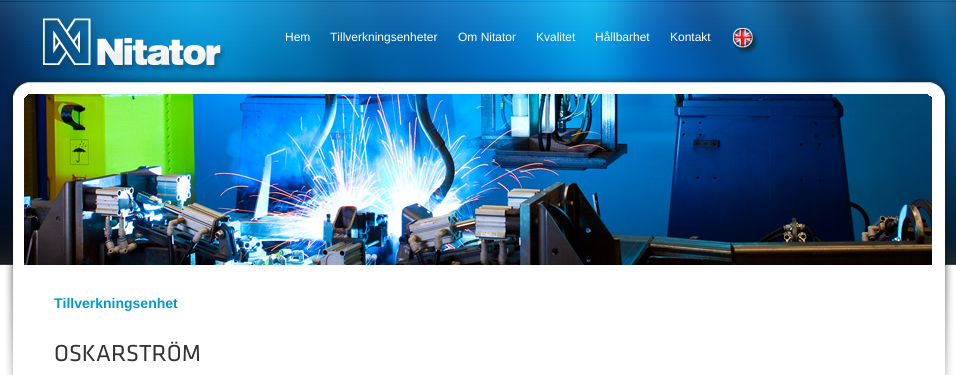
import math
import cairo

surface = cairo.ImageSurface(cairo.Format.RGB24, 956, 375)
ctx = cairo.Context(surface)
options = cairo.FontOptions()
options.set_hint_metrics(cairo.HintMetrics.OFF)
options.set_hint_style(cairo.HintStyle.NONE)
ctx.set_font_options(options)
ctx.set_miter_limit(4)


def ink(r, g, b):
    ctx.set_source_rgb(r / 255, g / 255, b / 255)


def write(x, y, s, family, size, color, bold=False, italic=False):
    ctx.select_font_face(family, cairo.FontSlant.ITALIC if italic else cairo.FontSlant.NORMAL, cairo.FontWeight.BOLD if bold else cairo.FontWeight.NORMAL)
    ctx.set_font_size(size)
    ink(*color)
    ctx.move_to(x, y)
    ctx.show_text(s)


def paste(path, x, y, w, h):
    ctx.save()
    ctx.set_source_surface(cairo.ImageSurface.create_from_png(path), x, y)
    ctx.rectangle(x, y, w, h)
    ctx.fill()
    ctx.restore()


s1 = dict(family="Liberation Sans", size=12, color=(255, 255, 255))
s2 = dict(family="Liberation Sans", size=14, color=(0, 153, 204), bold=True)
s3 = dict(family="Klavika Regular", size=24, color=(51, 51, 51))

ink(255, 255, 255)
ctx.paint()
paste("pic1.png", 0, 0, 956, 375)
paste("pic2.png", 43, 18, 182, 54)
write(285, 41, "Hem", **s1)
write(330, 41, "Tillverkningsenheter", **s1)
write(458, 41, "Om Nitator", **s1)
write(536, 41, "Kvalitet", **s1)
write(595, 41, "Hållbarhet", **s1)
write(670, 41, "Kontakt", **s1)
paste("pic3.png", 733, 28, 25, 27)
paste("pic4.png", 24, 94, 908, 171)
write(54, 308, "Tillverkningsenhet", **s2)
write(54, 361, "OSKARSTRÖM", **s3)
surface.write_to_png("screenshot.png")
